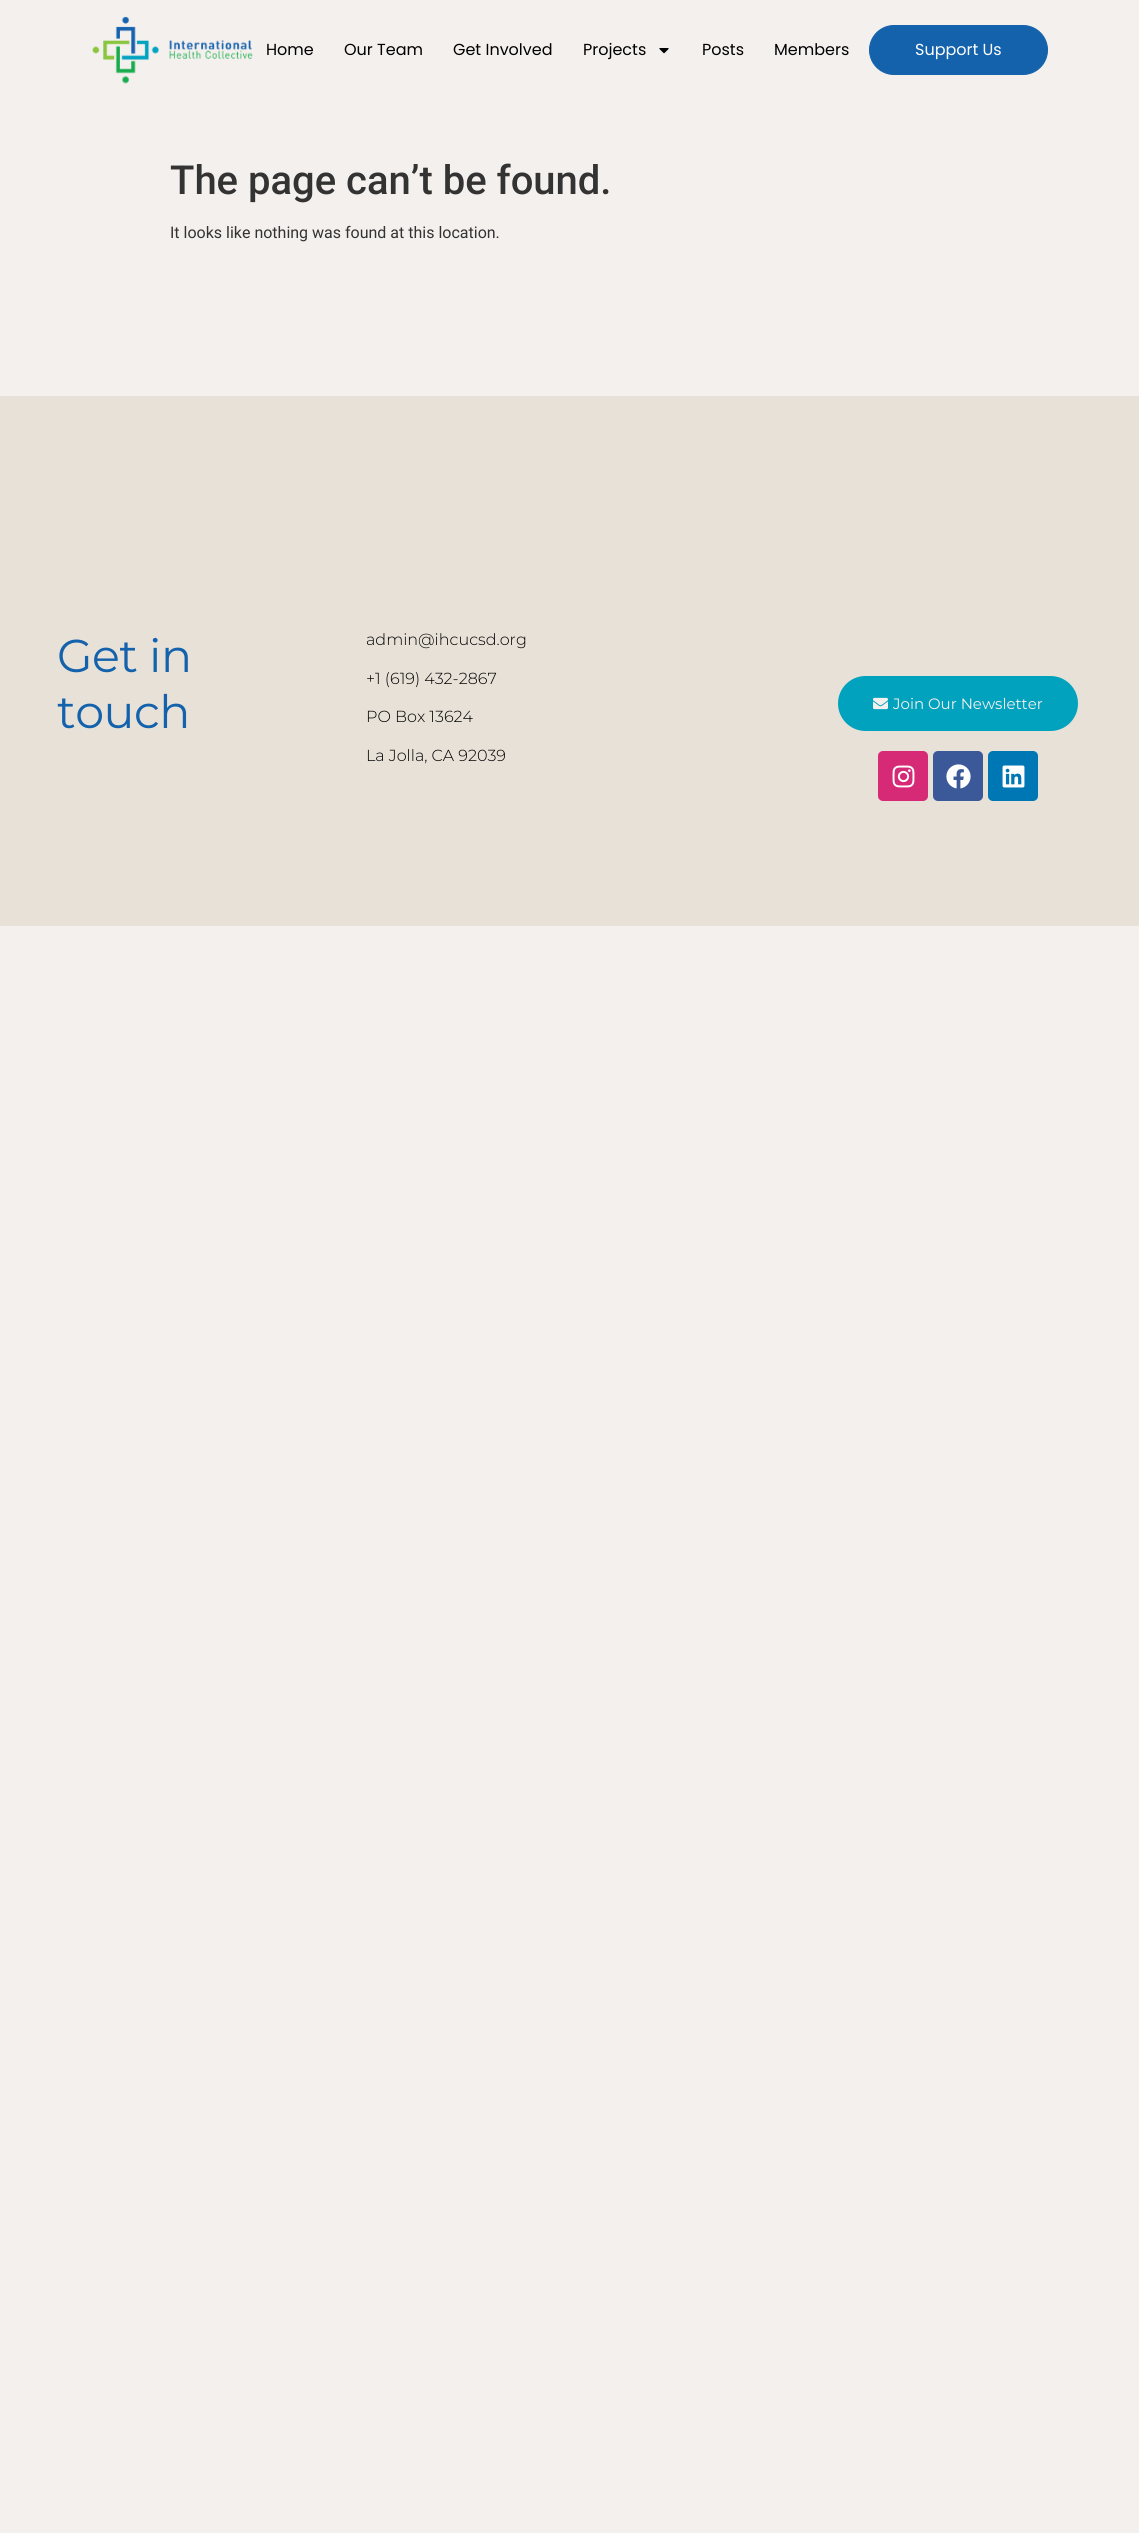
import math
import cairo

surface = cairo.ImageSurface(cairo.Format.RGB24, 1139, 2533)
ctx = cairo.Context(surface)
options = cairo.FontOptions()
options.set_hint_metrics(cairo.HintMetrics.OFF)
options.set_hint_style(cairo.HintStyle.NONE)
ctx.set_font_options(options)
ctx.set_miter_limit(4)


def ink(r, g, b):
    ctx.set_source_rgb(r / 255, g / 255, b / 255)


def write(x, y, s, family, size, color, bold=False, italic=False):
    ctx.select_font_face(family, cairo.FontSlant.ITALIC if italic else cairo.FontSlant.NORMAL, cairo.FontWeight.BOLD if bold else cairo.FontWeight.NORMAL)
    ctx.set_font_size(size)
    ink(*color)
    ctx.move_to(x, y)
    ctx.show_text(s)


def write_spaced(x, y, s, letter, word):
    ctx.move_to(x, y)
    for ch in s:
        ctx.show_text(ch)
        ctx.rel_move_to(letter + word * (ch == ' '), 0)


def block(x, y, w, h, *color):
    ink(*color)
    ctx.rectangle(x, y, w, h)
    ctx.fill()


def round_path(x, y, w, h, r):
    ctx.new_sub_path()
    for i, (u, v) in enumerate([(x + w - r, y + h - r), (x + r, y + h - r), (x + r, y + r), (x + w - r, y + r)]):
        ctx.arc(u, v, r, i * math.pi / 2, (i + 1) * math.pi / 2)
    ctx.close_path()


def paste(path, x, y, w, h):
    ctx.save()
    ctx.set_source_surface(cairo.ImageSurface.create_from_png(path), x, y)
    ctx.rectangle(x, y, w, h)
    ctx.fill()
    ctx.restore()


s1 = dict(family="Poppins", size=16, color=(0, 0, 0))
s2 = dict(family="Poppins", size=16, color=(255, 255, 255))
s3 = dict(family="Roboto Medium", size=40, color=(51, 51, 51))
s4 = dict(family="Roboto", size=16, color=(51, 51, 51))
s5 = dict(family="Montserrat Light", size=16, color=(0, 0, 0))
s6 = dict(family="Montserrat", size=15, color=(244, 240, 238))

ink(244, 240, 238)
ctx.paint()
paste("pic1.png", 92, 16, 161, 68)
write(266, 55, "Home", **s1)
write(344, 55, "Our Team", **s1)
write(453, 55, "Get Involved", **s1)
write(583, 55, "Projects", **s1)
paste("pic2.png", 659, 48, 10, 6)
write(702, 55, "Posts", **s1)
write(774, 55, "Members", **s1)
ink(20, 98, 172)
round_path(869.5, 25.5, 178, 49, 24.5)
ctx.fill_preserve()
ctx.set_line_width(1)
ctx.stroke()
write(915, 55, "Support Us", **s2)
write(170, 194, "The page can’t be found.", **s3)
write(170, 238, "It looks like nothing was found at this location.", **s4)
block(0, 396, 1139, 530, 232, 225, 216)
ctx.select_font_face("Montserrat")
ctx.set_font_size(46)
ink(20, 98, 172)
write_spaced(57, 672, "Get in", -0.5, 0)
write_spaced(57, 728, "touch", -0.5, 0)
write(366, 645, "admin@ihcucsd.org", **s5)
write(366, 684, "+1 (619) 432-2867", **s5)
write(366, 722, "PO Box 13624", **s5)
write(366, 761, "La Jolla, CA 92039", **s5)
ink(1, 162, 190)
round_path(838, 676, 240, 55, 27.5)
ctx.fill()
paste("pic3.png", 873, 697, 15, 13)
write(893, 709, "Join Our Newsletter", **s6)
ink(214, 41, 118)
round_path(878, 751, 50, 50, 5)
ctx.fill()
paste("pic4.png", 892, 765, 23, 23)
ink(59, 89, 152)
round_path(933, 751, 50, 50, 5)
ctx.fill()
paste("pic5.png", 946, 764, 25, 25)
ink(0, 119, 181)
round_path(988, 751, 50, 50, 5)
ctx.fill()
paste("pic6.png", 1002, 765, 23, 23)
surface.write_to_png("screenshot.png")
